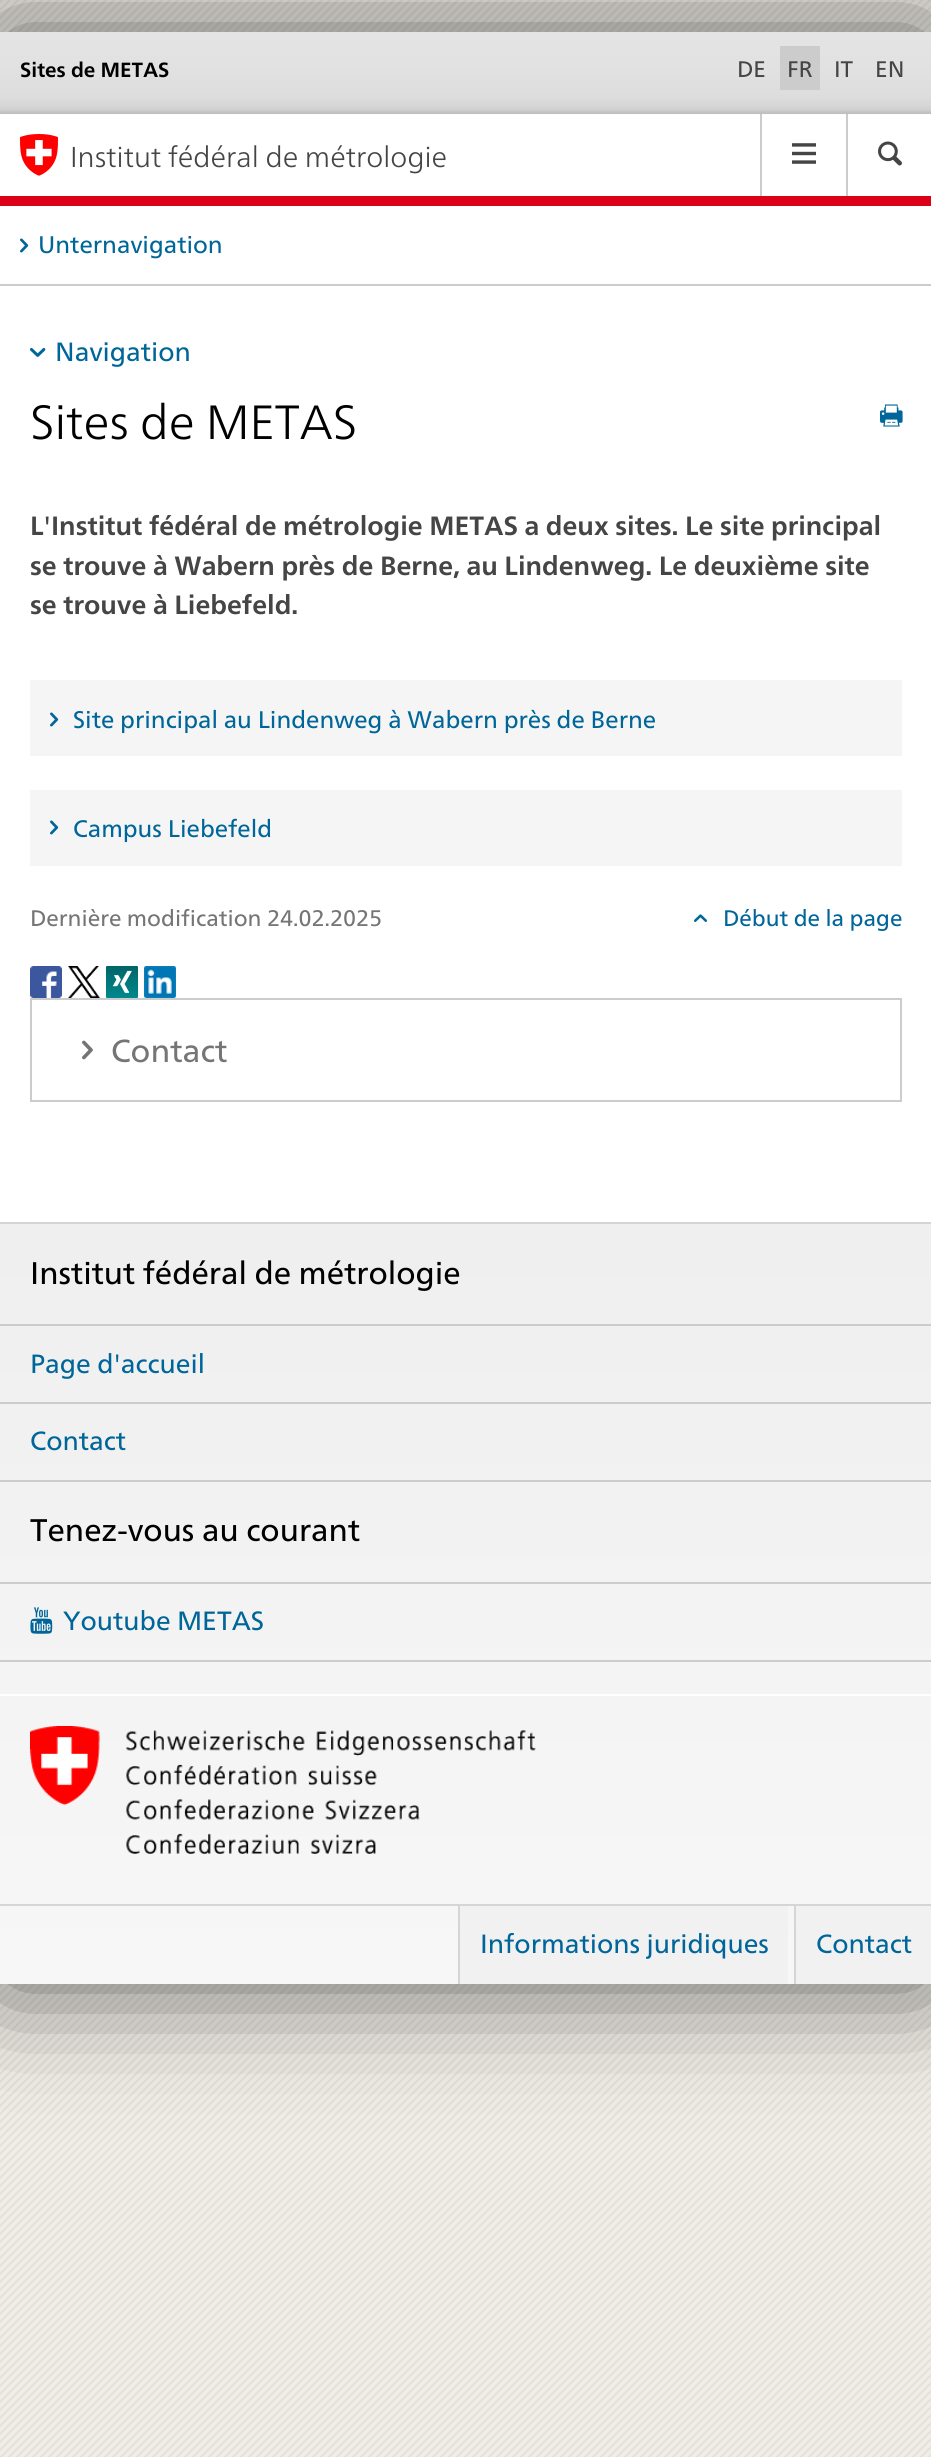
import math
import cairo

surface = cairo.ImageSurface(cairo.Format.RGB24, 931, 2457)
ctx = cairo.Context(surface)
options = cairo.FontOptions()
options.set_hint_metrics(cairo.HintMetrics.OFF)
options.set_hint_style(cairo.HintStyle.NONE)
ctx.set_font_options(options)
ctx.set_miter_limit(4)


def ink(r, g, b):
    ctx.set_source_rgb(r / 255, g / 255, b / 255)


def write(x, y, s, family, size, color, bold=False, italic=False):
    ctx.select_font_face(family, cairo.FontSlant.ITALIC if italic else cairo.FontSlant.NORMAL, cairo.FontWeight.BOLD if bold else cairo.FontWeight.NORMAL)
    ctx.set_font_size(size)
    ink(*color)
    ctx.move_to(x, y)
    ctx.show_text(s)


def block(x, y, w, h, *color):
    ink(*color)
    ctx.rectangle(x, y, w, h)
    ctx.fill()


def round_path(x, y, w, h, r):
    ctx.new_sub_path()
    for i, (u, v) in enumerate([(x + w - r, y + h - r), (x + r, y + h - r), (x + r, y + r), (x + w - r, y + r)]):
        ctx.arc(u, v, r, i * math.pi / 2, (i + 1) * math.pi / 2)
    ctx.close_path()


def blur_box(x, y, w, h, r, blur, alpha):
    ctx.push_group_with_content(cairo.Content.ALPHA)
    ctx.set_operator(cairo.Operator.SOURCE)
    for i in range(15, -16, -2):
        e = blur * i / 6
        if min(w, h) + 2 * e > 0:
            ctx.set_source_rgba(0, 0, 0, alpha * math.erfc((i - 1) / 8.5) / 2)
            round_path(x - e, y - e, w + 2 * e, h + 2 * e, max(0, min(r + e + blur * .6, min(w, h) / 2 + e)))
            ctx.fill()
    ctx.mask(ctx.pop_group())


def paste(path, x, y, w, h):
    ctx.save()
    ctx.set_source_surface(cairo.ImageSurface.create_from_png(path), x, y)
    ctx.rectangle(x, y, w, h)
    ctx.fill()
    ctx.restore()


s1 = dict(family="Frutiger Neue", size=20.5, color=(0, 0, 0), bold=True)
s2 = dict(family="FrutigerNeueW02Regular", size=22.5, color=(69, 69, 69))
s3 = dict(family="Frutiger Neue Light", size=28.75, color=(69, 69, 69))
s4 = dict(family="FrutigerNeueW02Regular", size=24, color=(0, 102, 153))
s5 = dict(family="FrutigerNeueW02Regular", size=26.4, color=(0, 102, 153))
s6 = dict(family="Frutiger Neue Light", size=48, color=(0, 0, 0))
s7 = dict(family="Frutiger Neue", size=26.4, color=(69, 69, 69), bold=True)
s8 = dict(family="FrutigerNeueW02Regular", size=22.5, color=(117, 117, 117))
s9 = dict(family="FrutigerNeueW02Regular", size=22.5, color=(0, 102, 153))
s10 = dict(family="FrutigerNeueW02Regular", size=32, color=(117, 117, 117))
s11 = dict(family="FrutigerNeueW02Regular", size=31.25, color=(0, 0, 0))

ink(255, 255, 255)
ctx.paint()
paste("pic1.png", 0, 0, 931, 2457)
ink(0, 0, 0)
blur_box(0, 32, 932, 1952, 0, 60, 0.6)
block(0, 114, 931, 1108, 255, 255, 255)
gradient = cairo.LinearGradient(466, 32, 466, 114)
gradient.add_color_stop_rgba(0, 0.894, 0.894, 0.894, 1)
gradient.add_color_stop_rgba(0.39, 0.886, 0.886, 0.886, 1)
gradient.add_color_stop_rgba(0.79, 0.867, 0.867, 0.867, 1)
gradient.add_color_stop_rgba(0.91, 0.835, 0.835, 0.835, 1)
gradient.add_color_stop_rgba(0.95, 0.812, 0.812, 0.812, 1)
gradient.add_color_stop_rgba(0.99, 0.745, 0.745, 0.745, 1)
ctx.set_source(gradient)
ctx.rectangle(0, 32, 931, 82)
ctx.fill()
write(20, 77, "Sites de METAS", **s1)
write(737, 77, "DE", **s2)
block(780, 46, 40, 44, 204, 204, 204)
write(787, 77, "FR", **s2)
write(834, 77, "IT", **s2)
write(875, 77, "EN", **s2)
block(0, 196, 931, 10, 220, 0, 24)
paste("pic2.png", 20, 134, 38, 42)
write(70, 167, "Institut fédéral de métrologie", **s3)
block(760, 114, 2, 82, 204, 204, 204)
paste("pic3.png", 792, 143, 24, 21)
block(846, 114, 2, 82, 204, 204, 204)
paste("pic4.png", 878, 141, 24, 25)
block(0, 284, 931, 2, 204, 204, 204)
paste("pic5.png", 20, 238, 9, 15)
write(38, 253, "Unternavigation", **s4)
paste("pic6.png", 30, 347, 16, 10)
write(55, 361, "Navigation", **s5)
write(30, 439, "Sites de METAS", **s6)
paste("pic7.png", 880, 404, 23, 23)
write(30, 535, "L'Institut fédéral de métrologie METAS a deux sites. Le site principal", **s7)
write(30, 575, "se trouve à Wabern près de Berne, au Lindenweg. Le deuxième site", **s7)
write(30, 614, "se trouve à Liebefeld.", **s7)
block(30, 680, 872, 76, 245, 245, 245)
paste("pic8.png", 50, 712, 9, 15)
write(73, 728, "Site principal au Lindenweg à Wabern près de Berne", **s4)
block(30, 790, 872, 76, 245, 245, 245)
paste("pic8.png", 50, 820, 9, 15)
write(73, 837, "Campus Liebefeld", **s4)
write(30, 926, "Dernière modification 24.02.2025", **s8)
paste("pic9.png", 694, 914, 13, 8)
write(723, 926, "Début de la page", **s9)
paste("pic10.png", 30, 966, 32, 32)
paste("pic11.png", 68, 966, 32, 32)
paste("pic12.png", 106, 966, 32, 32)
paste("pic13.png", 144, 966, 32, 32)
ctx.rectangle(31, 999, 870, 102)
ink(204, 204, 204)
ctx.stroke()
paste("pic14.png", 82, 1040, 11, 20)
write(111, 1062, "Contact", **s10)
gradient = cairo.LinearGradient(466, 1224, 466, 1984)
gradient.add_color_stop_rgba(0, 0.937, 0.937, 0.937, 1)
gradient.add_color_stop_rgba(1, 0.969, 0.969, 0.969, 1)
ctx.set_source(gradient)
ctx.rectangle(0, 1224, 931, 760)
ctx.fill()
block(0, 1222, 931, 2, 213, 213, 213)
write(30, 1284, "Institut fédéral de métrologie", **s11)
block(0, 1480, 931, 2, 204, 204, 204)
block(0, 1324, 931, 2, 204, 204, 204)
write(30, 1373, "Page d'accueil", **s5)
block(0, 1402, 931, 2, 204, 204, 204)
write(30, 1450, "Contact", **s5)
write(30, 1541, "Tenez-vous au courant", **s11)
block(0, 1660, 931, 2, 204, 204, 204)
block(0, 1582, 931, 2, 204, 204, 204)
paste("pic15.png", 30, 1607, 23, 27)
write(63, 1630, "Youtube METAS", **s5)
block(0, 1694, 931, 2, 255, 255, 255)
paste("pic16.png", 30, 1726, 506, 128)
block(0, 1904, 931, 2, 213, 213, 213)
block(460, 1906, 328, 78, 241, 241, 241)
block(458, 1906, 2, 78, 213, 213, 213)
write(480, 1953, "Informations juridiques", **s5)
block(796, 1906, 135, 78, 241, 241, 241)
block(794, 1906, 2, 78, 213, 213, 213)
write(816, 1953, "Contact", **s5)
surface.write_to_png("screenshot.png")
